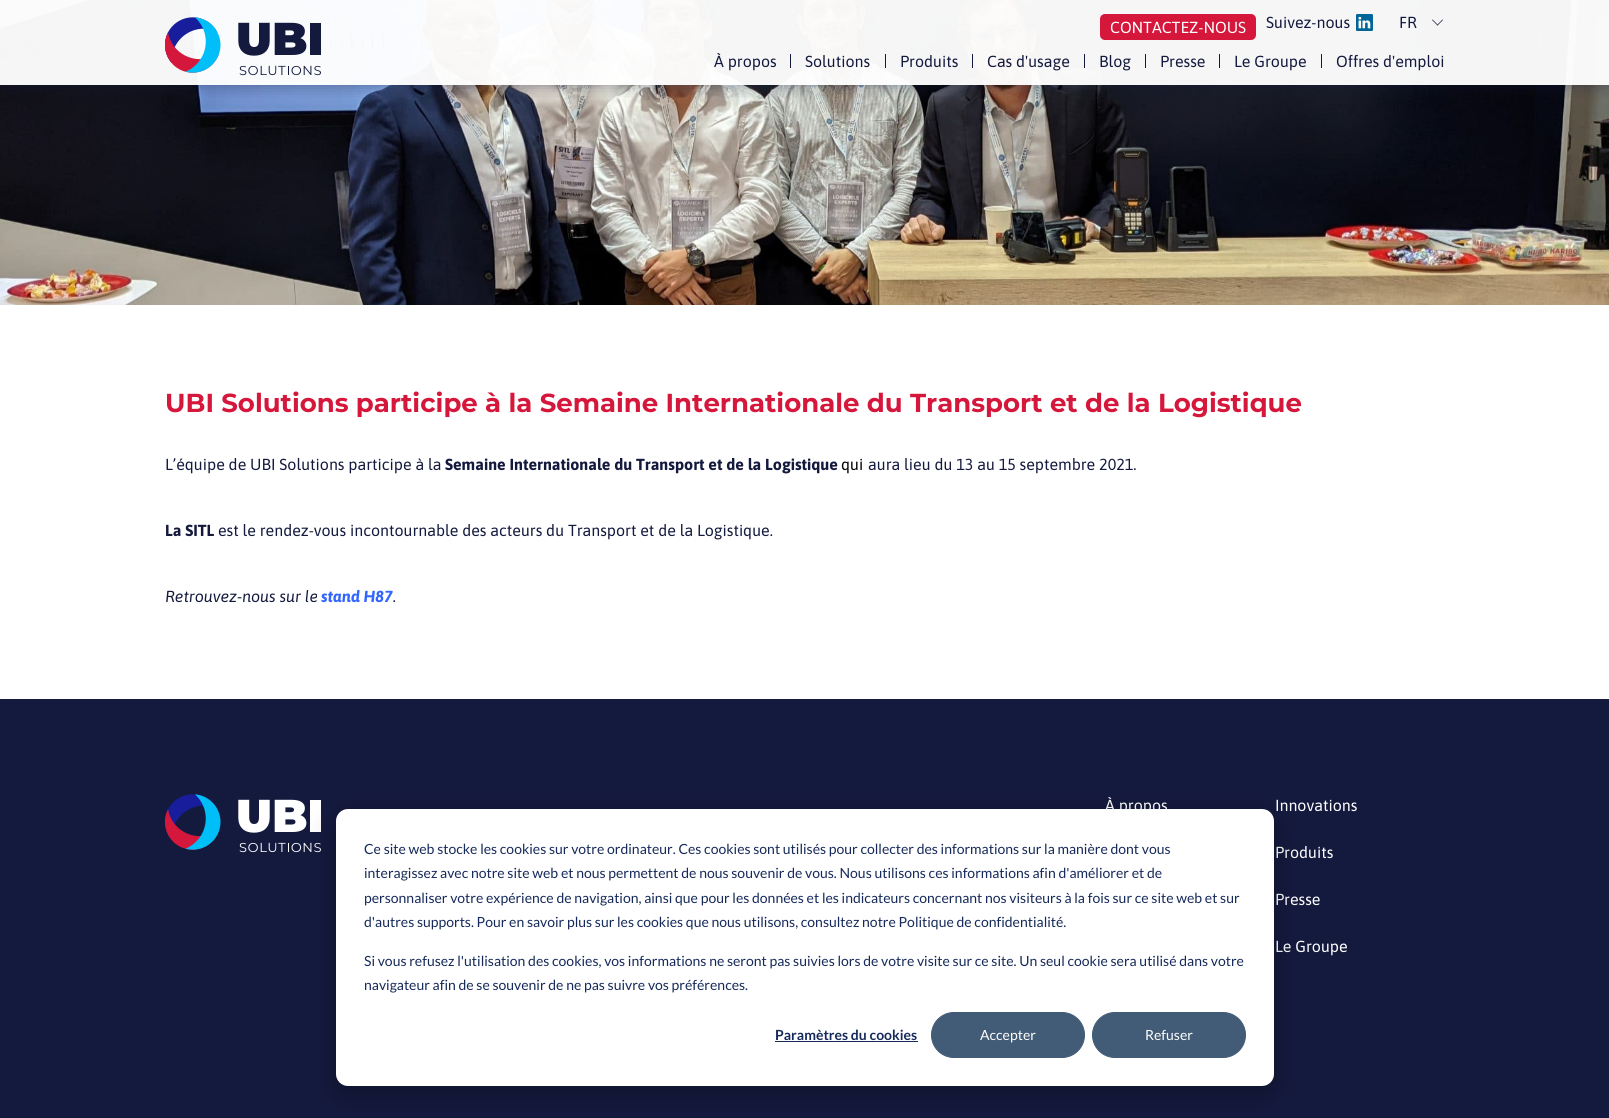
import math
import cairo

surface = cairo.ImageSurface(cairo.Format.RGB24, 1609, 1118)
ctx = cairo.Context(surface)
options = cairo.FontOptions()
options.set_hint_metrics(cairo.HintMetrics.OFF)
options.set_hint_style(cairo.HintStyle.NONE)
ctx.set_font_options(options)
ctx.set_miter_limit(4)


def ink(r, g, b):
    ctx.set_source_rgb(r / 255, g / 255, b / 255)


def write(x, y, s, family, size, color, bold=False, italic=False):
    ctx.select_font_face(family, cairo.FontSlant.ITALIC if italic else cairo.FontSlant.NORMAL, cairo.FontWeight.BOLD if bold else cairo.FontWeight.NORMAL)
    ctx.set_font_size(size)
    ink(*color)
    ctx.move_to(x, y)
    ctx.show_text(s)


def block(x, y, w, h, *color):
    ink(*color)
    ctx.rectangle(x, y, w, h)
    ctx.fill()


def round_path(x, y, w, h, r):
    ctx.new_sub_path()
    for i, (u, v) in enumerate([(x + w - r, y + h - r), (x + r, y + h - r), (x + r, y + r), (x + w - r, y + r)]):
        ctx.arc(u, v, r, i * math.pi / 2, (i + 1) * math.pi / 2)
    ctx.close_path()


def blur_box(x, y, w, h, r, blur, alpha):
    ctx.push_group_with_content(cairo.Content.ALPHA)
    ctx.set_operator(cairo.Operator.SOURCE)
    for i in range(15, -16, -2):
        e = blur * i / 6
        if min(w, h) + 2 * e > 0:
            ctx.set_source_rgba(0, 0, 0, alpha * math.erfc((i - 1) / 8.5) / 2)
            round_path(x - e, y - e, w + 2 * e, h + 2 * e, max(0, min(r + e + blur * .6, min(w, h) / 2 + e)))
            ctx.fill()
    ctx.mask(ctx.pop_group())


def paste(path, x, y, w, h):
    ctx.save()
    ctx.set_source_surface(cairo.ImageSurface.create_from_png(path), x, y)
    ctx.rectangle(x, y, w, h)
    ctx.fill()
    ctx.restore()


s1 = dict(family="Asap", size=16, color=(255, 255, 255))
s2 = dict(family="Asap", size=16, color=(20, 26, 62))
s3 = dict(family="Montserrat", size=26, color=(214, 23, 60), bold=True)
s4 = dict(family="Asap", size=16, color=(20, 26, 62), bold=True)
s5 = dict(family="Asap", size=16, color=(0, 0, 0))
s6 = dict(family="Asap", size=16, color=(20, 26, 62), italic=True)
s7 = dict(family="Asap", size=16, color=(51, 102, 255), bold=True, italic=True)
s8 = dict(family="Lato", size=14, color=(21, 41, 90))
s9 = dict(family="Lato", size=14, color=(21, 41, 90), bold=True)
s10 = dict(family="Lato", size=14, color=(255, 255, 255))

ink(20, 26, 62)
ctx.paint()
paste("pic1.png", 0, 0, 1609, 305)
ctx.save()
ctx.rectangle(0, 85, 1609, 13)
ctx.clip()
blur_box(0, 0, 1609, 85, 0, 8, 0.4)
ctx.restore()
ctx.set_source_rgba(1, 1, 1, 0.96)
ctx.rectangle(0, 0, 1609, 85)
ctx.fill()
paste("pic2.png", 165, 17, 156, 59)
ink(214, 23, 60)
round_path(1100, 14, 156, 26, 5)
ctx.fill()
write(1110, 33, "CONTACTEZ-NOUS", **s1)
write(1266, 28, "Suivez-nous", **s2)
paste("pic3.png", 1356, 14, 17, 17)
write(1399, 28, "FR", **s2)
ctx.new_path()
ctx.move_to(1442.5, 19.5)
ctx.line_to(1443, 20)
ctx.line_to(1437.5, 25.5)
ctx.line_to(1437, 25)
ctx.close_path()
ctx.fill()
ctx.new_path()
ctx.move_to(1432.5, 19.5)
ctx.line_to(1438, 25)
ctx.line_to(1437.5, 25.5)
ctx.line_to(1432, 20)
ctx.close_path()
ctx.fill()
write(714, 67, "À propos", **s2)
block(790, 54, 1, 14, 20, 26, 62)
write(805, 67, "Solutions", **s2)
block(885, 54, 1, 14, 20, 26, 62)
write(900, 67, "Produits", **s2)
block(972, 54, 1, 14, 20, 26, 62)
write(987, 67, "Cas d'usage", **s2)
block(1084, 54, 1, 14, 20, 26, 62)
write(1099, 67, "Blog", **s2)
block(1145, 54, 1, 14, 20, 26, 62)
write(1160, 67, "Presse", **s2)
block(1219, 54, 1, 14, 20, 26, 62)
write(1234, 67, "Le Groupe", **s2)
block(1321, 54, 1, 14, 20, 26, 62)
write(1336, 67, "Offres d'emploi", **s2)
block(0, 305, 1609, 394, 255, 255, 255)
write(165, 412, "UBI Solutions participe à la Semaine Internationale du Transport et de la Logistique", **s3)
write(165, 470, "L’équipe de UBI Solutions participe à la", **s2)
write(445, 470, "Semaine Internationale du Transport et de la Logistique", **s4)
write(841, 470, "qui", **s5)
write(868, 470, "aura lieu du 13 au 15 septembre 2021.", **s2)
write(165, 536, "La SITL", **s4)
write(218, 536, "est le rendez-vous incontournable des acteurs du Transport et de la Logistique.", **s2)
write(165, 602, "Retrouvez-nous sur le", **s6)
write(321, 602, "stand H87", **s7)
write(393, 602, ".", **s6)
paste("pic4.png", 165, 794, 156, 59)
write(1105, 811, "À propos", **s1)
write(1275, 811, "Innovations", **s1)
write(1275, 858, "Produits", **s1)
write(1275, 905, "Presse", **s1)
write(1275, 952, "Le Groupe", **s1)
ink(0, 0, 0)
blur_box(336, 817, 938, 277, 12, 14, 0.28)
ink(255, 255, 255)
round_path(336, 809, 938, 277, 12)
ctx.fill()
write(364, 854, "Ce site web stocke les cookies sur votre ordinateur. Ces cookies sont utilisés pour collecter des informations sur la manière dont vous", **s8)
write(364, 878, "interagissez avec notre site web et nous permettent de nous souvenir de vous. Nous utilisons ces informations afin d'améliorer et de", **s8)
write(364, 903, "personnaliser votre expérience de navigation, ainsi que pour les données et les indicateurs concernant nos visiteurs à la fois sur ce site web et sur", **s8)
write(364, 927, "d'autres supports. Pour en savoir plus sur les cookies que nous utilisons, consultez notre Politique de confidentialité.", **s8)
write(364, 966, "Si vous refusez l'utilisation des cookies, vos informations ne seront pas suivies lors de votre visite sur ce site. Un seul cookie sera utilisé dans votre", **s8)
write(364, 990, "navigateur afin de se souvenir de ne pas suivre vos préférences.", **s8)
write(775, 1040, "Paramètres du cookies", **s9)
block(775, 1041, 143, 1, 21, 41, 90)
ink(66, 91, 118)
round_path(931.5, 1012.5, 153, 45, 22.5)
ctx.fill_preserve()
ctx.set_line_width(1)
ctx.stroke()
write(980, 1040, "Accepter", **s10)
ink(66, 91, 118)
round_path(1092.5, 1012.5, 153, 45, 22.5)
ctx.fill_preserve()
ctx.stroke()
write(1145, 1040, "Refuser", **s10)
surface.write_to_png("screenshot.png")
